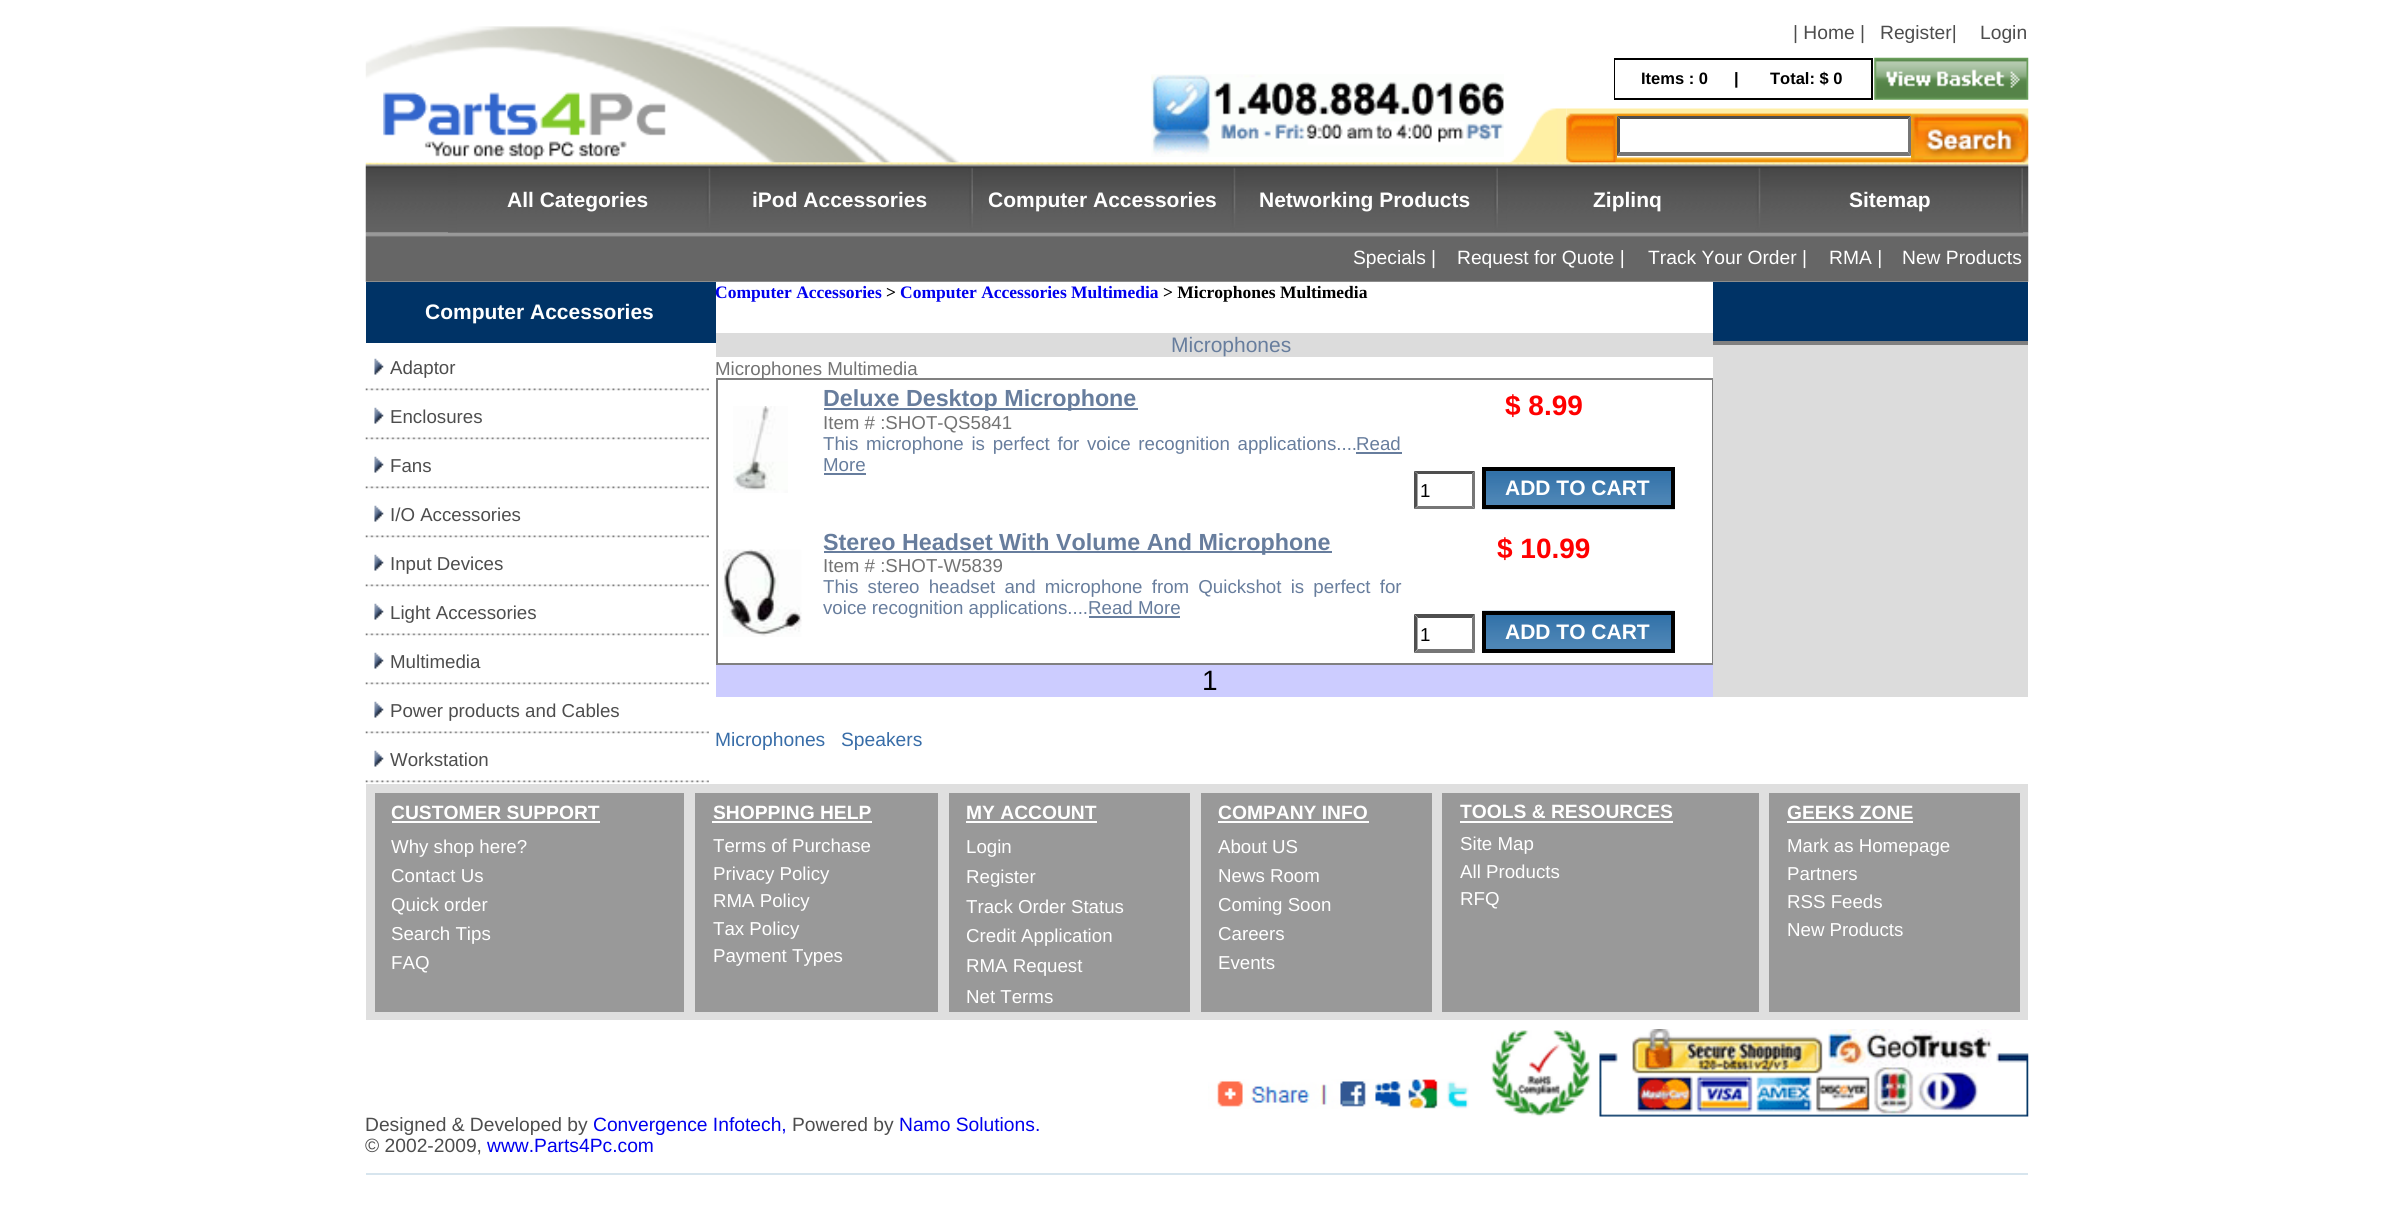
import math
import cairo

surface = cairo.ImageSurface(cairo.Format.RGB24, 2391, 1221)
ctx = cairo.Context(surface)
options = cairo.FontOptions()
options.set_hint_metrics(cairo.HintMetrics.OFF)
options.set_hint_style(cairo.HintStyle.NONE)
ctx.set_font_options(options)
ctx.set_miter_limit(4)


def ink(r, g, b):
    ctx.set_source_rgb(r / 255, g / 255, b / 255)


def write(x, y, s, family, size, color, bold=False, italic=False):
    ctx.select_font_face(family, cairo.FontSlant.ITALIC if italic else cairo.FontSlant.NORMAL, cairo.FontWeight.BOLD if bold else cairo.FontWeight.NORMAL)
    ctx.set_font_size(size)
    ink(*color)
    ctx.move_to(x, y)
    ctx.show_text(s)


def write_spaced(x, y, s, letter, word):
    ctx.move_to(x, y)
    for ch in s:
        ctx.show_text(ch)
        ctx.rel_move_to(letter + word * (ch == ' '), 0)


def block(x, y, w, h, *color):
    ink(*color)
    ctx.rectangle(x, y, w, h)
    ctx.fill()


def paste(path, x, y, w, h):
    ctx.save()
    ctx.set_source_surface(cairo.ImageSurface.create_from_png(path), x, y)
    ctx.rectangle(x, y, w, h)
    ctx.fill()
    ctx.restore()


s1 = dict(family="Liberation Sans", size=19.25, color=(77, 77, 77))
s2 = dict(family="Liberation Sans", size=16.5, color=(0, 0, 0), bold=True)
s3 = dict(family="Liberation Sans", size=21, color=(255, 255, 255), bold=True)
s4 = dict(family="Liberation Sans", size=19.25, color=(255, 255, 255))
s5 = dict(family="Liberation Sans", size=18.7, color=(77, 77, 77))
s6 = dict(family="Liberation Serif", size=17.5, color=(0, 0, 238), bold=True)
s7 = dict(family="Liberation Serif", size=17.5, color=(0, 0, 0), bold=True)
s8 = dict(family="Liberation Sans", size=21, color=(103, 125, 157))
s9 = dict(family="Liberation Sans", size=18.7, color=(115, 115, 115))
s10 = dict(family="Liberation Sans", size=23.3, color=(103, 125, 157), bold=True)
s11 = dict(family="Liberation Sans", size=18.7, color=(103, 125, 157))
s12 = dict(family="Liberation Sans", size=28, color=(255, 0, 0), bold=True)
s13 = dict(family="Liberation Sans", size=18.7, color=(0, 0, 0))
s14 = dict(family="Liberation Sans", size=28, color=(0, 0, 0))
s15 = dict(family="Liberation Sans", size=19.25, color=(56, 109, 168))
s16 = dict(family="Liberation Sans", size=19.25, color=(255, 255, 255), bold=True)
s17 = dict(family="Liberation Sans", size=18.7, color=(255, 255, 255))
s18 = dict(family="Liberation Sans", size=19.25, color=(0, 0, 238))

ink(255, 255, 255)
ctx.paint()
paste("pic1.png", 365, 26, 594, 137)
paste("pic2.png", 383, 92, 283, 68)
paste("pic3.png", 1151, 74, 353, 83)
write(1793, 39, "| Home |", **s1)
write(1880, 39, "Register|", **s1)
write(1980, 39, "Login", **s1)
ctx.rectangle(1615, 59, 257, 40)
ink(0, 0, 0)
ctx.stroke()
block(1615, 60, 1, 38, 255, 255, 255)
write(1641, 84, "Items : 0", **s2)
write(1734, 84, "|", **s2)
write(1770, 84, "Total: $ 0", **s2)
paste("pic4.png", 1874, 57, 155, 43)
paste("pic5.png", 1510, 108, 57, 55)
paste("pic6.png", 1566, 108, 51, 55)
paste("pic7.png", 1617, 108, 294, 55)
block(1617, 116, 294, 4, 255, 255, 255)
ink(79, 79, 79)
ctx.new_path()
ctx.move_to(1617, 116)
ctx.line_to(1911, 116)
ctx.line_to(1908, 119)
ctx.line_to(1620, 119)
ctx.close_path()
ctx.fill()
ink(118, 118, 118)
ctx.new_path()
ctx.move_to(1911, 116)
ctx.line_to(1911, 156)
ctx.line_to(1908, 152)
ctx.line_to(1908, 119)
ctx.close_path()
ctx.fill()
ctx.new_path()
ctx.move_to(1911, 156)
ctx.line_to(1617, 156)
ctx.line_to(1620, 152)
ctx.line_to(1908, 152)
ctx.close_path()
ctx.fill()
ink(79, 79, 79)
ctx.new_path()
ctx.move_to(1617, 156)
ctx.line_to(1617, 116)
ctx.line_to(1620, 119)
ctx.line_to(1620, 152)
ctx.close_path()
ctx.fill()
paste("pic8.png", 1911, 108, 118, 55)
paste("pic9.png", 365, 162, 83, 71)
paste("pic10.png", 448, 162, 1581, 71)
paste("pic11.png", 448, 162, 263, 71)
paste("pic12.png", 448, 162, 9, 71)
paste("pic13.png", 457, 162, 248, 71)
write(507, 207, "All Categories", **s3)
paste("pic15.png", 710, 162, 263, 71)
paste("pic14.png", 705, 162, 6, 71)
paste("pic16.png", 710, 162, 9, 71)
paste("pic17.png", 719, 162, 249, 71)
write(752, 207, "iPod Accessories", **s3)
paste("pic18.png", 968, 162, 5, 71)
paste("pic19.png", 973, 162, 263, 71)
paste("pic12.png", 973, 162, 9, 71)
paste("pic20.png", 982, 162, 248, 71)
write(988, 207, "Computer Accessories", **s3)
paste("pic21.png", 1235, 162, 263, 71)
paste("pic14.png", 1230, 162, 6, 71)
paste("pic16.png", 1235, 162, 9, 71)
paste("pic22.png", 1244, 162, 249, 71)
write(1259, 207, "Networking Products", **s3)
paste("pic18.png", 1493, 162, 5, 71)
paste("pic23.png", 1498, 162, 263, 71)
paste("pic12.png", 1498, 162, 9, 71)
paste("pic24.png", 1507, 162, 248, 71)
write(1593, 207, "Ziplinq", **s3)
paste("pic26.png", 1760, 162, 263, 71)
paste("pic25.png", 1755, 162, 6, 71)
paste("pic27.png", 1760, 162, 9, 71)
paste("pic28.png", 1769, 162, 249, 71)
write(1849, 207, "Sitemap", **s3)
paste("pic29.png", 2018, 162, 5, 71)
paste("pic30.png", 365, 232, 1664, 50)
write(1353, 264, "Specials |", **s4)
write(1457, 264, "Request for Quote |", **s4)
write(1648, 264, "Track Your Order |", **s4)
write(1829, 264, "RMA |", **s4)
write(1902, 264, "New Products", **s4)
block(366, 282, 350, 61, 0, 51, 102)
write(425, 319, "Computer Accessories", **s3)
paste("pic31.png", 374, 358, 10, 17)
write(390, 374, "Adaptor", **s5)
paste("pic32.png", 365, 388, 344, 3)
paste("pic31.png", 374, 407, 10, 17)
write(390, 423, "Enclosures", **s5)
paste("pic32.png", 365, 437, 344, 3)
paste("pic31.png", 374, 456, 10, 17)
write(390, 472, "Fans", **s5)
paste("pic32.png", 365, 486, 344, 3)
paste("pic31.png", 374, 505, 10, 17)
write(390, 521, "I/O Accessories", **s5)
paste("pic32.png", 365, 535, 344, 3)
paste("pic31.png", 374, 554, 10, 17)
write(390, 570, "Input Devices", **s5)
paste("pic32.png", 365, 584, 344, 3)
paste("pic31.png", 374, 603, 10, 17)
write(390, 619, "Light Accessories", **s5)
paste("pic32.png", 365, 633, 344, 3)
paste("pic31.png", 374, 652, 10, 17)
write(390, 668, "Multimedia", **s5)
paste("pic32.png", 365, 682, 344, 3)
paste("pic31.png", 374, 701, 10, 17)
write(390, 717, "Power products and Cables", **s5)
paste("pic32.png", 365, 731, 344, 3)
paste("pic31.png", 374, 750, 10, 17)
write(390, 766, "Workstation", **s5)
paste("pic32.png", 365, 780, 344, 3)
write(715, 298, "Computer Accessories", **s6)
write(886, 298, ">", **s7)
write(900, 298, "Computer Accessories Multimedia", **s6)
write(1163, 298, "> Microphones Multimedia", **s7)
block(716, 333, 997, 24, 220, 220, 220)
write(1171, 352, "Microphones", **s8)
block(716, 378, 997, 2, 128, 128, 128)
block(1712, 378, 1, 287, 128, 128, 128)
block(716, 663, 997, 2, 128, 128, 128)
block(716, 378, 2, 287, 128, 128, 128)
write(715, 375, "Microphones Multimedia", **s9)
paste("pic33.png", 733, 406, 55, 87)
block(824, 408, 314, 2, 103, 125, 157)
write(823, 406, "Deluxe Desktop Microphone", **s10)
write(823, 429, "Item # :SHOT-QS5841", **s9)
ink(103, 125, 157)
write_spaced(823, 450, "This microphone is perfect for voice recognition applications....", 0, 2.5)
block(1356, 452, 46, 2, 103, 125, 157)
write(1356, 450, "Read", **s11)
write(823, 471, "More", **s11)
block(824, 473, 42, 2, 103, 125, 157)
write(1505, 415, "$ 8.99", **s12)
ink(79, 79, 79)
ctx.new_path()
ctx.move_to(1414, 471)
ctx.line_to(1475, 471)
ctx.line_to(1472, 474)
ctx.line_to(1418, 474)
ctx.close_path()
ctx.fill()
ink(118, 118, 118)
ctx.new_path()
ctx.move_to(1475, 471)
ctx.line_to(1475, 509)
ctx.line_to(1472, 506)
ctx.line_to(1472, 474)
ctx.close_path()
ctx.fill()
ctx.new_path()
ctx.move_to(1475, 509)
ctx.line_to(1414, 509)
ctx.line_to(1418, 506)
ctx.line_to(1472, 506)
ctx.close_path()
ctx.fill()
ink(79, 79, 79)
ctx.new_path()
ctx.move_to(1414, 509)
ctx.line_to(1414, 471)
ctx.line_to(1417.5, 474)
ctx.line_to(1417.5, 506)
ctx.close_path()
ctx.fill()
write(1420, 497, "1", **s13)
paste("pic34.png", 1482, 471, 193, 39)
ctx.rectangle(1484, 469, 189, 38)
ctx.set_line_width(4)
ctx.stroke()
write(1505, 495, "ADD TO CART", **s3)
paste("pic35.png", 722, 549, 80, 88)
block(824, 551, 508, 2, 103, 125, 157)
write(823, 550, "Stereo Headset With Volume And Microphone", **s10)
write(823, 572, "Item # :SHOT-W5839", **s9)
ink(103, 125, 157)
write_spaced(823, 593, "This stereo headset and microphone from Quickshot is perfect for", 0, 4)
write(823, 614, "voice recognition applications....Read More", **s11)
block(1089, 616, 91, 2, 103, 125, 157)
write(1497, 558, "$ 10.99", **s12)
ink(79, 79, 79)
ctx.new_path()
ctx.move_to(1414, 614)
ctx.line_to(1475, 614)
ctx.line_to(1472, 618)
ctx.line_to(1418, 618)
ctx.close_path()
ctx.fill()
ink(118, 118, 118)
ctx.new_path()
ctx.move_to(1475, 614)
ctx.line_to(1475, 653)
ctx.line_to(1472, 649)
ctx.line_to(1472, 618)
ctx.close_path()
ctx.fill()
ctx.new_path()
ctx.move_to(1475, 653)
ctx.line_to(1414, 653)
ctx.line_to(1418, 649)
ctx.line_to(1472, 649)
ctx.close_path()
ctx.fill()
ink(79, 79, 79)
ctx.new_path()
ctx.move_to(1414, 653)
ctx.line_to(1414, 614)
ctx.line_to(1417.5, 618)
ctx.line_to(1417.5, 649)
ctx.close_path()
ctx.fill()
write(1420, 641, "1", **s13)
paste("pic36.png", 1482, 610, 193, 39)
ctx.rectangle(1484, 613, 189, 38)
ctx.stroke()
write(1505, 639, "ADD TO CART", **s3)
block(716, 665, 997, 32, 204, 204, 255)
write(1202, 690, "1", **s14)
block(1713, 345, 315, 352, 220, 220, 220)
block(1713, 282, 315, 59, 0, 51, 102)
block(1713, 341, 315, 4, 128, 128, 128)
write(715, 746, "Microphones", **s15)
write(841, 746, "Speakers", **s15)
block(366, 784, 1662, 236, 223, 223, 223)
block(375, 793, 309, 219, 153, 153, 153)
write(391, 819, "CUSTOMER SUPPORT", **s16)
block(392, 821, 208, 2, 255, 255, 255)
write(391, 853, "Why shop here?", **s17)
write(391, 882, "Contact Us", **s17)
write(391, 911, "Quick order", **s17)
write(391, 940, "Search Tips", **s17)
write(391, 969, "FAQ", **s17)
block(695, 793, 243, 219, 153, 153, 153)
write(713, 819, "SHOPPING HELP", **s16)
block(712, 821, 160, 2, 255, 255, 255)
write(713, 852, "Terms of Purchase", **s17)
write(713, 880, "Privacy Policy", **s17)
write(713, 907, "RMA Policy", **s17)
write(713, 935, "Tax Policy", **s17)
write(713, 962, "Payment Types", **s17)
block(949, 793, 241, 219, 153, 153, 153)
write(966, 819, "MY ACCOUNT", **s16)
block(966, 821, 131, 2, 255, 255, 255)
write(966, 853, "Login", **s17)
write(966, 883, "Register", **s17)
write(966, 913, "Track Order Status", **s17)
write(966, 942, "Credit Application", **s17)
write(966, 972, "RMA Request", **s17)
write(966, 1003, "Net Terms", **s17)
block(1201, 793, 231, 219, 153, 153, 153)
write(1218, 819, "COMPANY INFO", **s16)
block(1218, 821, 151, 2, 255, 255, 255)
write(1218, 853, "About US", **s17)
write(1218, 882, "News Room", **s17)
write(1218, 911, "Coming Soon", **s17)
write(1218, 940, "Careers", **s17)
write(1218, 969, "Events", **s17)
block(1442, 793, 317, 219, 153, 153, 153)
write(1460, 818, "TOOLS & RESOURCES", **s16)
block(1460, 821, 213, 2, 255, 255, 255)
write(1460, 850, "Site Map", **s17)
write(1460, 878, "All Products", **s17)
write(1460, 905, "RFQ", **s17)
block(1769, 793, 251, 219, 153, 153, 153)
write(1787, 819, "GEEKS ZONE", **s16)
block(1787, 821, 126, 2, 255, 255, 255)
write(1787, 852, "Mark as Homepage", **s17)
write(1787, 880, "Partners", **s17)
write(1787, 908, "RSS Feeds", **s17)
write(1787, 936, "New Products", **s17)
paste("pic37.png", 1208, 1079, 261, 30)
paste("pic38.png", 1491, 1030, 100, 87)
paste("pic39.png", 1599, 1029, 430, 88)
write(365, 1131, "Designed & Developed by", **s1)
write(593, 1131, "Convergence Infotech,", **s18)
write(792, 1131, "Powered by", **s1)
write(899, 1131, "Namo Solutions.", **s18)
write(365, 1152, "© 2002-2009,", **s1)
write(487, 1152, "www.Parts4Pc.com", **s18)
block(366, 1173, 1662, 2, 215, 229, 238)
surface.write_to_png("screenshot.png")
